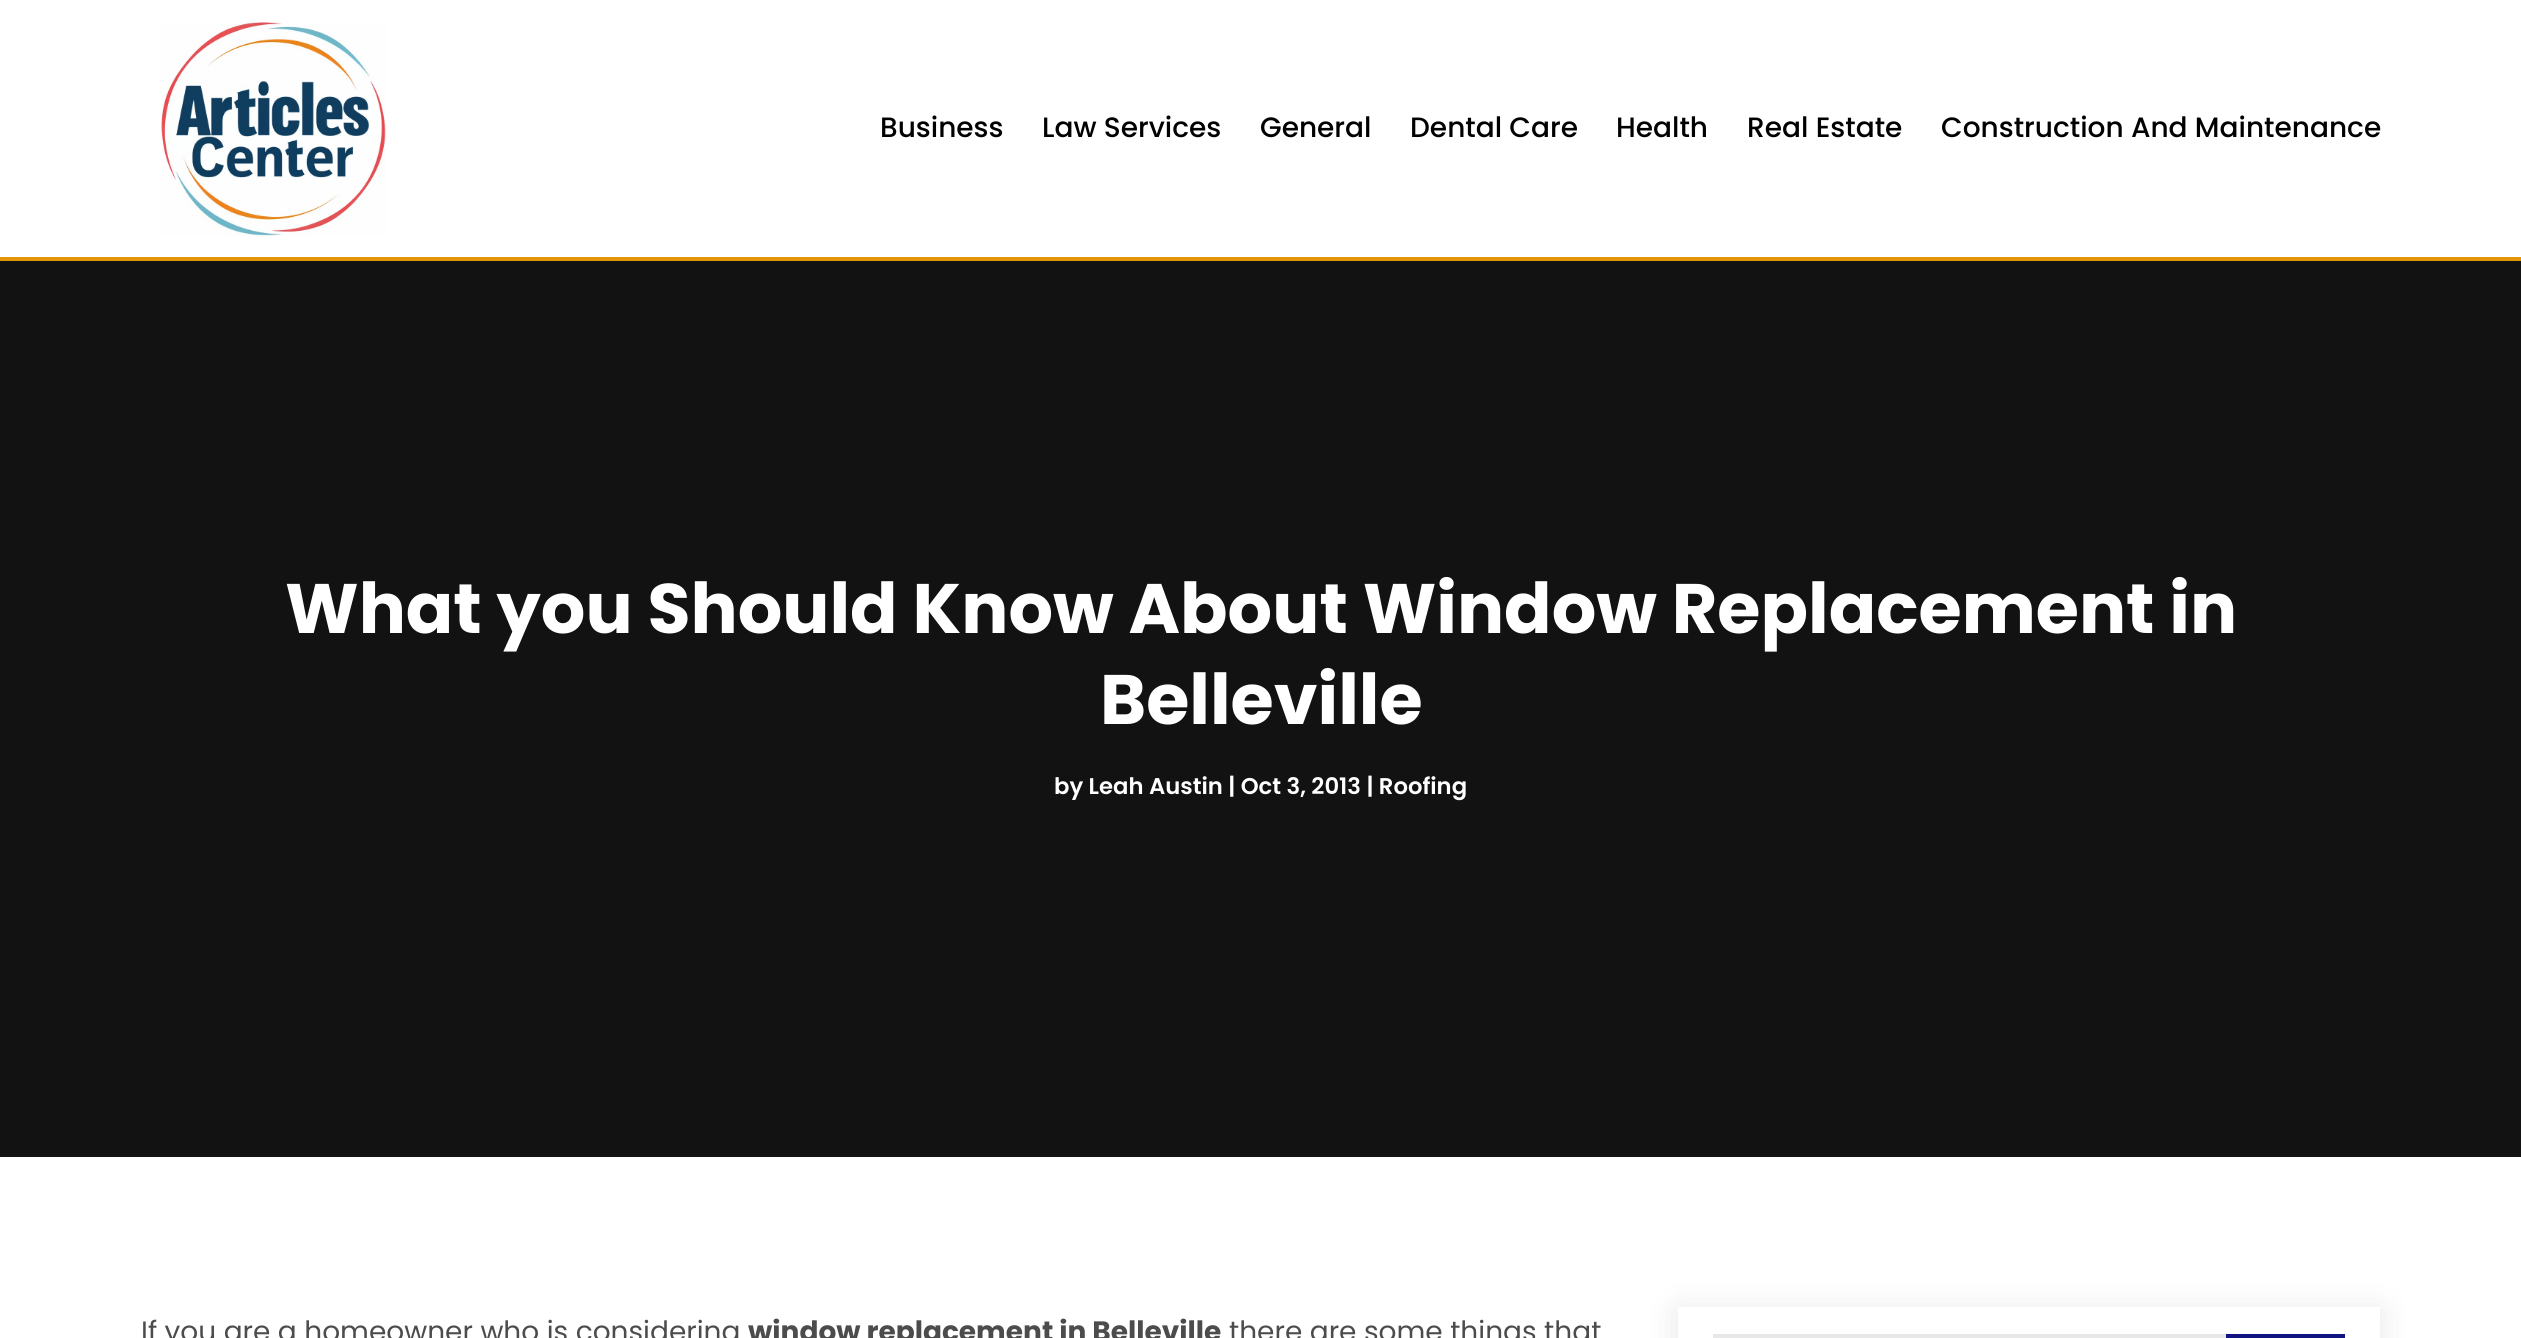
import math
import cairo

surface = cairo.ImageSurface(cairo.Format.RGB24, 2521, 1338)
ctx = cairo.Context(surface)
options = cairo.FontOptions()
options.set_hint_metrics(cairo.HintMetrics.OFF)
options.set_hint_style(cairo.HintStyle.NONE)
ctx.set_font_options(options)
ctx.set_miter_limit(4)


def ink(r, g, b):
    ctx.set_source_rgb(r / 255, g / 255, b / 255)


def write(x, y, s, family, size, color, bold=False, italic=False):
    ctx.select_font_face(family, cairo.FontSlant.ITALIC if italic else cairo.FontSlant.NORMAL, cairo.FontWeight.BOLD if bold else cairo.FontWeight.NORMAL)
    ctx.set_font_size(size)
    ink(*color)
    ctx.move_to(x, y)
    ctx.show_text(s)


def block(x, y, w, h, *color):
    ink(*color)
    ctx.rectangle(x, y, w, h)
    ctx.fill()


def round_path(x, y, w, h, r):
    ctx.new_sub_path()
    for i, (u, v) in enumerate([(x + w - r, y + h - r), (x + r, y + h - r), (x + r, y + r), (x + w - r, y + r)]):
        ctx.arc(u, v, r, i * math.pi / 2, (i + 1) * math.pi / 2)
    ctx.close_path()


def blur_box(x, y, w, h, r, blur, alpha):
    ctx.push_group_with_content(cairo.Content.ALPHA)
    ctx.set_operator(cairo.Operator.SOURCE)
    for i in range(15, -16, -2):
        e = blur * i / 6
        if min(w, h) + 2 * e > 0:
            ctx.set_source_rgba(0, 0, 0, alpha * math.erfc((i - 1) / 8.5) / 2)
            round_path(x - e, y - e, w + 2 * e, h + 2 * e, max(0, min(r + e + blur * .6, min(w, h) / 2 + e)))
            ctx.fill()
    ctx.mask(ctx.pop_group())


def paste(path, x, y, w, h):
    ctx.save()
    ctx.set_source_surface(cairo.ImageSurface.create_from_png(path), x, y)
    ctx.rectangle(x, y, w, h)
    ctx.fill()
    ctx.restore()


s1 = dict(family="Poppins Medium", size=28, color=(0, 0, 0))
s2 = dict(family="Poppins", size=70, color=(255, 255, 255), bold=True)
s3 = dict(family="Poppins SemiBold", size=22.75, color=(255, 255, 255))
s4 = dict(family="Poppins", size=28, color=(76, 76, 76))
s5 = dict(family="Poppins", size=28, color=(76, 76, 76), bold=True)

ink(255, 255, 255)
ctx.paint()
block(0, 257, 2521, 4, 226, 149, 7)
paste("pic1.png", 161, 22, 225, 214)
write(880, 137, "Business", **s1)
write(1042, 137, "Law Services", **s1)
write(1260, 137, "General", **s1)
write(1410, 137, "Dental Care", **s1)
write(1616, 137, "Health", **s1)
write(1747, 137, "Real Estate", **s1)
write(1941, 137, "Construction And Maintenance", **s1)
block(0, 261, 2521, 896, 18, 18, 18)
write(285, 633, "What you Should Know About Window Replacement in", **s2)
write(1100, 724, "Belleville", **s2)
write(1054, 794, "by Leah Austin | Oct 3, 2013 | Roofing", **s3)
write(141, 1341, "If you are a homeowner who is considering", **s4)
write(748, 1341, "window replacement in Belleville", **s5)
write(1229, 1341, "there are some things that", **s4)
ink(0, 0, 0)
blur_box(1678, 1311, 702, 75, 0, 16, 0.1)
block(1678, 1307, 702, 31, 255, 255, 255)
block(1713, 1334, 513, 4, 232, 232, 232)
block(2226, 1334, 119, 4, 18, 20, 129)
surface.write_to_png("screenshot.png")
